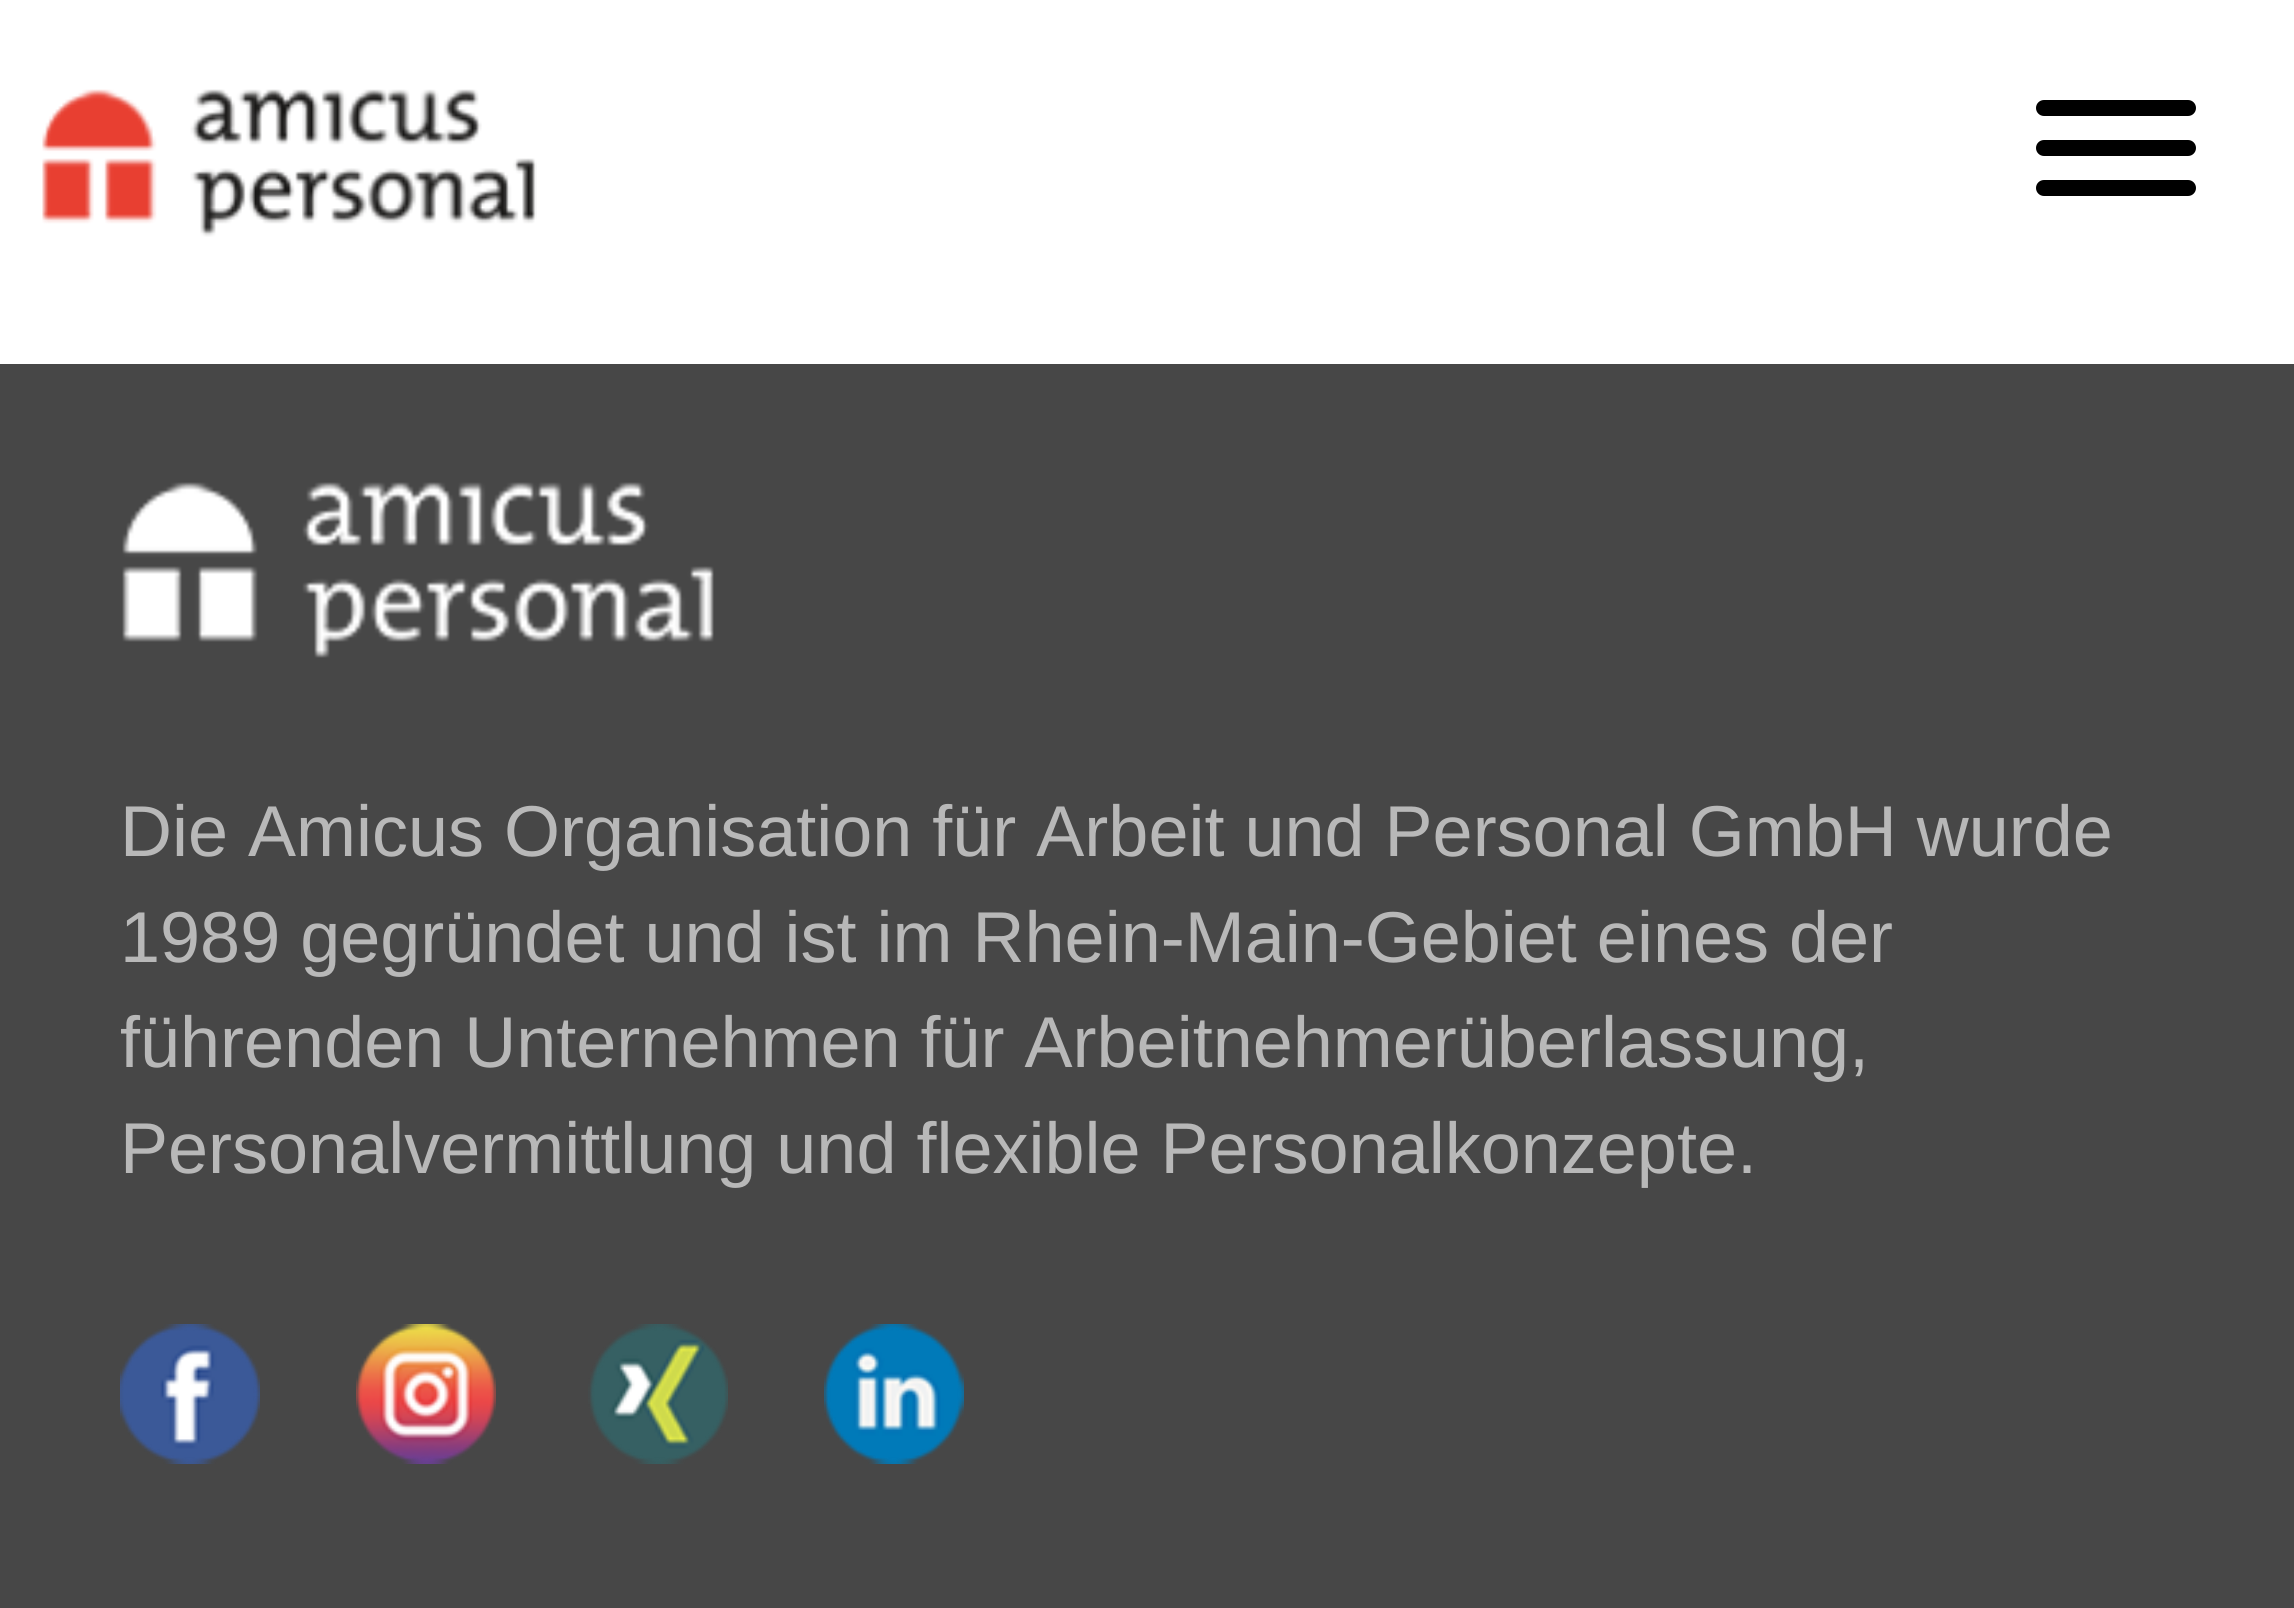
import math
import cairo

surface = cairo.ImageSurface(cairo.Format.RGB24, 2294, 1608)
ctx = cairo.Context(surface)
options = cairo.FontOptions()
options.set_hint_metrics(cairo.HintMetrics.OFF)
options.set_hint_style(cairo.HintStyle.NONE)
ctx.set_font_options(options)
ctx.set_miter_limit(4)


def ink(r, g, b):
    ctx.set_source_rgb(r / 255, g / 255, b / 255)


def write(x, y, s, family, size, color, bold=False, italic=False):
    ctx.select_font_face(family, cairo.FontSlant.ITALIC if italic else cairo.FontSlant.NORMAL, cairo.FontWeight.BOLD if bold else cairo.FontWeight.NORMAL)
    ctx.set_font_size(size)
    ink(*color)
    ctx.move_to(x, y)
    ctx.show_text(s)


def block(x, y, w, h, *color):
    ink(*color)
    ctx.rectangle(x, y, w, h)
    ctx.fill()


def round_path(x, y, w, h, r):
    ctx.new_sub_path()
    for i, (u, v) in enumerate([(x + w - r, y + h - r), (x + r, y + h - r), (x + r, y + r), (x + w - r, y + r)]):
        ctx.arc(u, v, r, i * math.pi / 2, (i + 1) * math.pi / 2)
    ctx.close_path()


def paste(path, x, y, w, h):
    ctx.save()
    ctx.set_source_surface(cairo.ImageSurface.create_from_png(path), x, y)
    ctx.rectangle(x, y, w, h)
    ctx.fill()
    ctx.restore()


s1 = dict(family="Liberation Sans", size=72, color=(184, 184, 184))

ink(71, 71, 71)
ctx.paint()
block(0, 0, 2294, 364, 255, 255, 255)
paste("pic1.png", 42, 89, 495, 148)
ink(0, 0, 0)
round_path(2036, 180, 160, 16, 8)
ctx.fill()
round_path(2036, 100, 160, 16, 8)
ctx.fill()
round_path(2036, 140, 160, 16, 8)
ctx.fill()
paste("pic2.png", 122, 482, 592, 176)
write(120, 856, "Die Amicus Organisation für Arbeit und Personal GmbH wurde", **s1)
write(120, 962, "1989 gegründet und ist im Rhein-Main-Gebiet eines der", **s1)
write(120, 1067, "führenden Unternehmen für Arbeitnehmerüberlassung,", **s1)
write(120, 1173, "Personalvermittlung und flexible Personalkonzepte.", **s1)
paste("pic3.png", 120, 1324, 140, 140)
paste("pic4.png", 356, 1324, 140, 140)
paste("pic5.png", 588, 1324, 140, 140)
paste("pic6.png", 824, 1324, 140, 140)
surface.write_to_png("screenshot.png")
